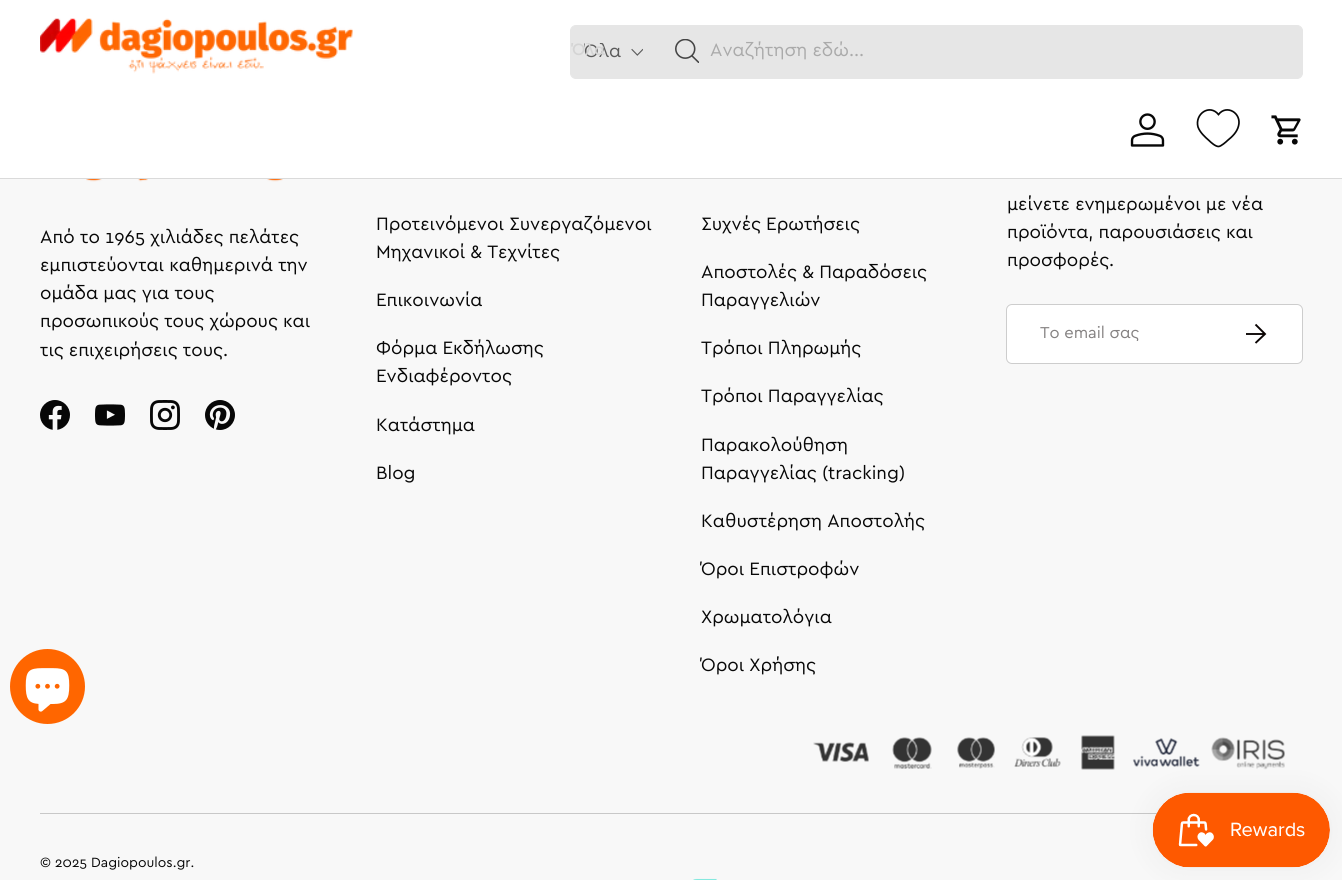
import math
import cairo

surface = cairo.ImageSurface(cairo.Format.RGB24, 1342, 880)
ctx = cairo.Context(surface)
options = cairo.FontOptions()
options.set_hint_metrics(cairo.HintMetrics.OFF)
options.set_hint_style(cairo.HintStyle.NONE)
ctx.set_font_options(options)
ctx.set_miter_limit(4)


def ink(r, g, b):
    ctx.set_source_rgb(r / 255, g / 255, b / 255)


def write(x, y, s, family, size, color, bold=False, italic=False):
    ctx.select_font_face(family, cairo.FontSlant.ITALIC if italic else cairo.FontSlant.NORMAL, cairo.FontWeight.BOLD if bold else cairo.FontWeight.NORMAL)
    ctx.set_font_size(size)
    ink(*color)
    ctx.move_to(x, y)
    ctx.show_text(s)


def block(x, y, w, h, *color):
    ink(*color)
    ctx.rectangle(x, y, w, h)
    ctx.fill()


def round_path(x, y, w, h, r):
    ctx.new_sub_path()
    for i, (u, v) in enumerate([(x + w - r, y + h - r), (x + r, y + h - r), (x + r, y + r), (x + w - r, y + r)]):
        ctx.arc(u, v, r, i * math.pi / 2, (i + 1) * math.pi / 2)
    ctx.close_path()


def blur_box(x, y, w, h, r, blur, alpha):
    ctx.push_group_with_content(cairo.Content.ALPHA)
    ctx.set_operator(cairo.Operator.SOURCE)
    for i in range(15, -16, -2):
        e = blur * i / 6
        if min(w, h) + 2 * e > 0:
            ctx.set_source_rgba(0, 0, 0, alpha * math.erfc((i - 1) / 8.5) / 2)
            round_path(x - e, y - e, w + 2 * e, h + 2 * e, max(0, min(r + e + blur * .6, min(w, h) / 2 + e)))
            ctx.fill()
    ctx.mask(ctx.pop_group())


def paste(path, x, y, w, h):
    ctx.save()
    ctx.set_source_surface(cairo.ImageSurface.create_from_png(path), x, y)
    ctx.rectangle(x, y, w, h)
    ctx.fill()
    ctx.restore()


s1 = dict(family="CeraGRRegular", size=18.75, color=(91, 91, 91))
s2 = dict(family="CeraGRRegular", size=16.5, color=(212, 212, 212), bold=True)
s3 = dict(family="CeraGRRegular", size=18.75, color=(170, 170, 170))
s4 = dict(family="CeraGRRegular", size=18.75, color=(7, 7, 7))
s5 = dict(family="CeraGRRegular", size=16.5, color=(132, 129, 129))
s6 = dict(family="CeraGRRegular", size=14, color=(7, 7, 7))

ink(248, 248, 248)
ctx.paint()
block(0, 0, 1342, 178, 255, 255, 255)
block(0, 178, 1342, 1, 218, 218, 218)
paste("pic1.png", 40, 18, 313, 56)
ink(230, 230, 230)
round_path(570.5, 25.5, 732, 53, 5.5)
ctx.fill_preserve()
ctx.set_line_width(1)
ctx.stroke()
ctx.save()
ctx.rectangle(584, 43, 37, 18)
ctx.clip()
write(584, 57, "Όλα", **s1)
ctx.restore()
ctx.save()
ctx.rectangle(571, 43, 85, 17)
ctx.clip()
write(572, 55, "Όλα", **s2)
ctx.restore()
paste("pic2.png", 631, 48, 12, 8)
paste("pic3.png", 675, 39, 24, 24)
write(710, 56, "Αναζήτηση εδώ...", **s3)
paste("pic4.png", 1130, 113, 35, 34)
ctx.new_path()
ctx.move_to(1218.5, 146.5)
ctx.curve_to(1215.5, 146.5, 1211, 142.5, 1209, 140.5)
ctx.curve_to(1205, 137, 1200, 132.5, 1198, 127)
ctx.curve_to(1194.5, 114, 1209.5, 103.5, 1218.5, 114.5)
ctx.curve_to(1226.5, 104, 1242, 113, 1238.5, 126)
ctx.curve_to(1237, 132, 1232.5, 136.5, 1227.5, 140.5)
ctx.curve_to(1226.5, 141.5, 1221, 146.5, 1218.5, 146.5)
ctx.close_path()
ink(7, 7, 7)
ctx.set_line_width(1.7)
ctx.stroke()
paste("pic5.png", 1271, 115, 30, 30)
paste("pic6.png", 86, 179, 197, 3)
write(40, 243, "Από το 1965 χιλιάδες πελάτες", **s4)
write(40, 271, "εμπιστεύονται καθημερινά την", **s4)
write(40, 299, "ομάδα μας για τους", **s4)
write(40, 327, "προσωπικούς τους χώρους και", **s4)
write(40, 356, "τις επιχειρήσεις τους.", **s4)
paste("pic7.png", 40, 400, 30, 30)
paste("pic8.png", 95, 404, 30, 22)
paste("pic9.png", 150, 400, 30, 30)
paste("pic10.png", 205, 400, 30, 30)
write(376, 230, "Προτεινόμενοι Συνεργαζόμενοι", **s4)
write(376, 258, "Μηχανικοί & Τεχνίτες", **s4)
write(376, 306, "Επικοινωνία", **s4)
write(376, 354, "Φόρμα Εκδήλωσης", **s4)
write(376, 382, "Ενδιαφέροντος", **s4)
write(376, 431, "Κατάστημα", **s4)
write(376, 479, "Blog", **s4)
write(701, 230, "Συχνές Ερωτήσεις", **s4)
write(701, 278, "Αποστολές & Παραδόσεις", **s4)
write(701, 306, "Παραγγελιών", **s4)
write(701, 354, "Τρόποι Πληρωμής", **s4)
write(701, 402, "Τρόποι Παραγγελίας", **s4)
write(701, 451, "Παρακολούθηση", **s4)
write(701, 479, "Παραγγελίας (tracking)", **s4)
write(701, 527, "Καθυστέρηση Αποστολής", **s4)
write(701, 575, "Όροι Επιστροφών", **s4)
write(701, 623, "Χρωματολόγια", **s4)
write(701, 671, "Όροι Χρήσης", **s4)
write(1007, 210, "μείνετε ενημερωμένοι με νέα", **s4)
write(1007, 238, "προϊόντα, παρουσιάσεις και", **s4)
write(1007, 266, "προσφορές.", **s4)
ink(255, 255, 255)
round_path(1006.5, 304.5, 296, 59, 5.5)
ctx.fill_preserve()
ink(205, 205, 205)
ctx.set_line_width(1)
ctx.stroke()
write(1040, 338, "Το email σας", **s5)
ctx.new_path()
ctx.move_to(1246, 334)
ctx.line_to(1264, 334)
ctx.move_to(1255.5, 324.5)
ctx.line_to(1265, 334)
ctx.line_to(1255.5, 343)
ink(9, 3, 2)
ctx.set_line_width(1.9)
ctx.stroke()
paste("pic11.png", 813, 735, 472, 35)
block(40, 813, 1117, 1, 200, 200, 200)
write(40, 867, "© 2025 Dagiopoulos.gr.", **s6)
paste("pic12.png", 693, 878, 24, 2)
ink(255, 102, 0)
ctx.arc(47.5, 686.5, 37.5, 0, 2 * math.pi)
ctx.fill()
paste("pic13.png", 25, 668, 45, 44)
ink(0, 0, 0)
blur_box(1153, 793, 177, 75, 37.5, 15.5, 0.05)
paste("pic14.png", 1152, 792, 178, 76)
surface.write_to_png("screenshot.png")
